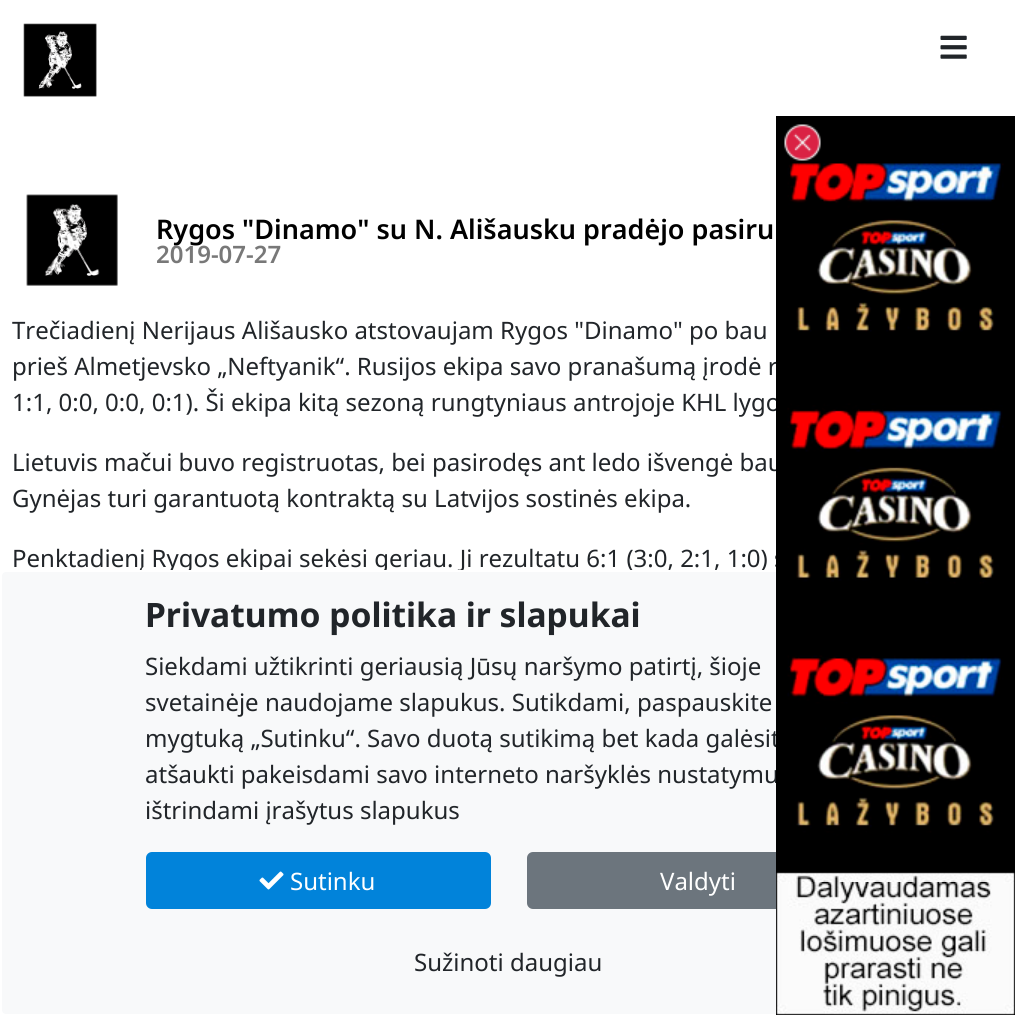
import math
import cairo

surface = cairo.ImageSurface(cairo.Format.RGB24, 1015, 1015)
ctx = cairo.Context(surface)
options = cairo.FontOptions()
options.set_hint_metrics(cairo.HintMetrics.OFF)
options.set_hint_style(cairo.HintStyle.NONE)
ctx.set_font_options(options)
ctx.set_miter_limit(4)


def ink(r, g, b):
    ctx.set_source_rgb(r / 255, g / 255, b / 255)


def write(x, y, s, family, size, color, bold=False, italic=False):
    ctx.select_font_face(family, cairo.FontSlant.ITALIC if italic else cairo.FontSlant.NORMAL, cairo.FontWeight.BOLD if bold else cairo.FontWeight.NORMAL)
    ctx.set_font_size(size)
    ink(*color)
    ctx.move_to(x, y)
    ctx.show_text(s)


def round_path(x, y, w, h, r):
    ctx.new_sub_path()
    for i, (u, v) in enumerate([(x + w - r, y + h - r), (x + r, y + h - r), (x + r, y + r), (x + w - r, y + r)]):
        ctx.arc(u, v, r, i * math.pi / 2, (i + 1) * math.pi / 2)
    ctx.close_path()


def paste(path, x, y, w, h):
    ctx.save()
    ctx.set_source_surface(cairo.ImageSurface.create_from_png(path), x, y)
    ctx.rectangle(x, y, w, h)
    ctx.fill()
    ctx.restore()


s1 = dict(family="Noto Sans SemiBold", size=27, color=(0, 0, 0))
s2 = dict(family="Noto Sans SemiBold", size=24, color=(120, 120, 120))
s3 = dict(family="Noto Sans", size=24, color=(33, 37, 41))
s4 = dict(family="Noto Sans", size=33.6, color=(33, 37, 41), bold=True)
s5 = dict(family="Noto Sans", size=24, color=(255, 255, 255))

ink(255, 255, 255)
ctx.paint()
paste("pic1.png", 940, 35, 27, 24)
paste("pic2.png", 23, 23, 74, 74)
paste("pic3.png", 26, 194, 92, 92)
write(156, 239, "Rygos \"Dinamo\" su N. Ališausku pradėjo pasiru", **s1)
write(156, 263, "2019-07-27", **s2)
write(12, 339, "Trečiadienį Nerijaus Ališausko atstovaujam Rygos \"Dinamo\" po bau", **s3)
write(12, 375, "prieš Almetjevsko „Neftyanik“. Rusijos ekipa savo pranašumą įrodė r", **s3)
write(12, 411, "1:1, 0:0, 0:0, 0:1). Ši ekipa kitą sezoną rungtyniaus antrojoje KHL lygo", **s3)
write(12, 471, "Lietuvis mačui buvo registruotas, bei pasirodęs ant ledo išvengė bau", **s3)
write(12, 507, "Gynėjas turi garantuotą kontraktą su Latvijos sostinės ekipa.", **s3)
write(12, 567, "Penktadienį Rygos ekipai sekėsi geriau. Ji rezultatu 6:1 (3:0, 2:1, 1:0) s", **s3)
ink(248, 249, 250)
round_path(1, 571, 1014, 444, 5)
ctx.fill_preserve()
ink(255, 255, 255)
ctx.stroke()
write(145, 747, "mygtuką „Sutinku“. Savo duotą sutikimą bet kada galėsit", **s3)
write(145, 783, "atšaukti pakeisdami savo interneto naršyklės nustatymu", **s3)
ink(108, 117, 125)
round_path(528, 853, 343, 55, 5)
ctx.fill_preserve()
ctx.stroke()
paste("pic4.png", 776, 116, 239, 899)
paste("pic5.png", 784, 124, 37, 37)
write(145, 627, "Privatumo politika ir slapukai", **s4)
write(145, 675, "Siekdami užtikrinti geriausią Jūsų naršymo patirtį, šioje", **s3)
write(145, 711, "svetainėje naudojame slapukus. Sutikdami, paspauskite", **s3)
write(145, 819, "ištrindami įrašytus slapukus", **s3)
ink(1, 131, 218)
round_path(147, 853, 343, 55, 5)
ctx.fill_preserve()
ctx.stroke()
paste("pic6.png", 259, 871, 25, 19)
write(290, 890, "Sutinku", **s5)
write(660, 890, "Valdyti", **s5)
write(414, 971, "Sužinoti daugiau", **s3)
surface.write_to_png("screenshot.png")
